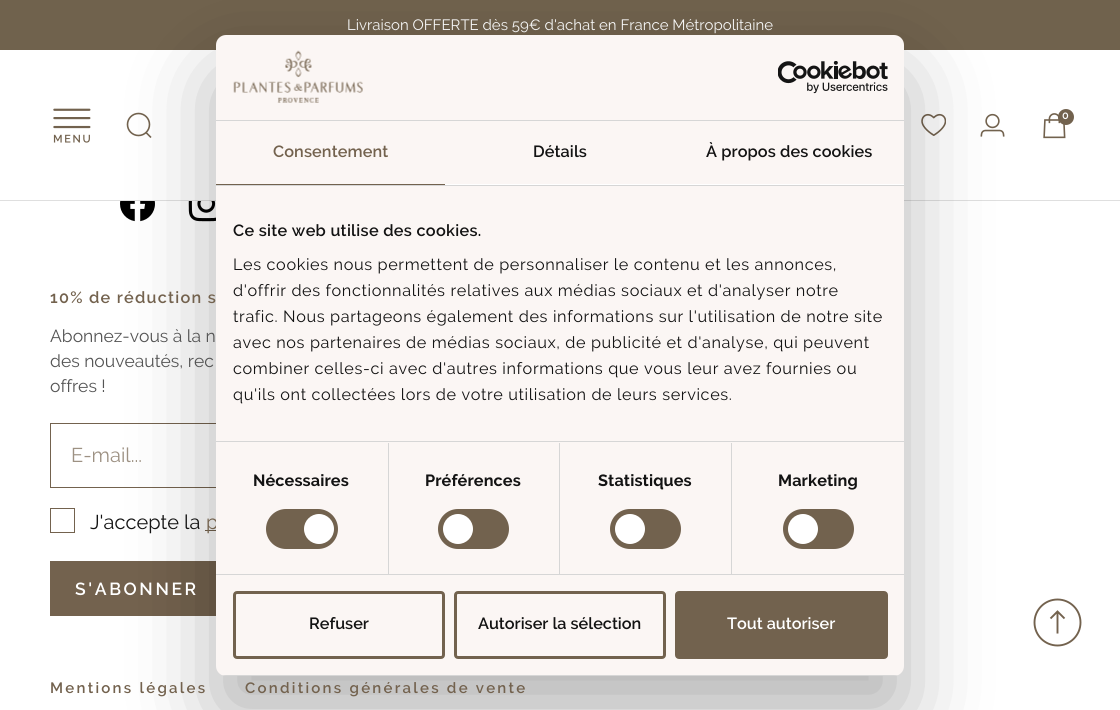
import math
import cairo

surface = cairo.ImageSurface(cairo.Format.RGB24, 1120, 710)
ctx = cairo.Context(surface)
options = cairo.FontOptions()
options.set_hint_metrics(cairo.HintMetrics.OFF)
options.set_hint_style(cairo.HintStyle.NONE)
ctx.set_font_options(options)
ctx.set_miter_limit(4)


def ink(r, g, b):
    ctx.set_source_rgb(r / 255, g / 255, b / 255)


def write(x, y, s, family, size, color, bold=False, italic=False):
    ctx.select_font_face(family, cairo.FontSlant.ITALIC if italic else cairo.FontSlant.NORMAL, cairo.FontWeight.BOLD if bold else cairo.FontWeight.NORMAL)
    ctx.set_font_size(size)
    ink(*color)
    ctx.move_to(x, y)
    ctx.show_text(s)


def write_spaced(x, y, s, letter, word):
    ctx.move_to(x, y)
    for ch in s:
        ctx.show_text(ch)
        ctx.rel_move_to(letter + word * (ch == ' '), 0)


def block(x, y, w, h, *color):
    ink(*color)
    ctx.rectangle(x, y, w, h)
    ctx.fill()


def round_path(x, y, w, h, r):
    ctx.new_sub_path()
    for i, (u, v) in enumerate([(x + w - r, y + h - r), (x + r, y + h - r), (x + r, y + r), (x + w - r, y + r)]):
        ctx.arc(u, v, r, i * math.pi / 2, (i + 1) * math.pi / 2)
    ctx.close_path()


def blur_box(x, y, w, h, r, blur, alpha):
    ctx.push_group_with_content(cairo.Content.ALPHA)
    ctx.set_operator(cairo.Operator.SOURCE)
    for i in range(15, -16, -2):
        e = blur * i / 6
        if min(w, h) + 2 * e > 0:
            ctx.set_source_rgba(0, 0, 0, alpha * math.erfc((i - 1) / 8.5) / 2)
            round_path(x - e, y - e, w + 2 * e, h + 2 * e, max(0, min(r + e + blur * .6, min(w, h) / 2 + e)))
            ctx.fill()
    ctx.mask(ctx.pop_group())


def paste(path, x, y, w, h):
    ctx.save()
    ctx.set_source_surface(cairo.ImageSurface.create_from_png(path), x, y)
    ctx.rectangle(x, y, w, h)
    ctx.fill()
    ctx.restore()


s1 = dict(family="Raleway", size=15, color=(255, 255, 255))
s2 = dict(family="Raleway SemiBold", size=11, color=(255, 255, 255))
s3 = dict(family="Raleway", size=20, color=(115, 98, 78))
s4 = dict(family="Raleway SemiBold", size=16.25, color=(19, 19, 19))
s5 = dict(family="Raleway SemiBold", size=16.25, color=(255, 255, 255))
s6 = dict(family="Raleway", size=17.5, color=(84, 84, 84))
s7 = dict(family="Raleway", size=20, color=(157, 145, 131))
s8 = dict(family="Raleway", size=20, color=(19, 19, 19))

ink(255, 255, 255)
ctx.paint()
block(0, 0, 1120, 50, 112, 98, 77)
write(347, 30, "Livraison OFFERTE dès 59€ d'achat en France Métropolitaine", **s1)
block(0, 200, 1120, 1, 223, 223, 223)
paste("pic1.png", 53, 108, 38, 35)
ctx.arc(138.5, 124.5, 11, 0, 2 * math.pi)
ink(114, 98, 78)
ctx.set_line_width(1.6)
ctx.stroke()
ctx.new_path()
ctx.move_to(146, 132.5)
ctx.line_to(151, 137.5)
ctx.stroke()
paste("pic2.png", 921, 113, 25, 23)
paste("pic3.png", 980, 113, 25, 24)
paste("pic4.png", 1043, 113, 23, 26)
ctx.arc(1066, 117, 8, 0, 2 * math.pi)
ctx.fill()
write(1062, 119, "0", **s2)
paste("pic7.png", 120, 201, 35, 21)
paste("pic8.png", 188, 201, 28, 21)
ctx.rectangle(50.5, 423.5, 405, 64)
ink(115, 98, 78)
ctx.set_line_width(1)
ctx.stroke()
block(205, 530, 11, 1, 115, 98, 78)
block(50, 561, 166, 55, 115, 98, 78)
ink(0, 0, 0)
blur_box(216, 75, 688, 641, 10, 42.5, 0.3)
write(206, 529, "p", **s3)
ink(251, 246, 244)
round_path(216, 35, 688, 641, 10)
ctx.fill()
block(216, 120, 688, 1, 214, 214, 214)
paste("pic5.png", 233, 50, 130, 53)
paste("pic6.png", 778, 61, 110, 33)
block(216, 185, 688, 1, 214, 214, 214)
block(216, 184, 229, 1, 114, 98, 78)
ctx.select_font_face("Raleway SemiBold")
ctx.set_font_size(16.25)
ink(115, 98, 78)
write_spaced(273, 157, "Consentement", 0.1, 0)
block(445, 184, 459, 1, 255, 255, 255)
ink(19, 19, 19)
write_spaced(533, 157, "Détails", 0.1, 0)
write_spaced(706, 157, "À propos des cookies", 0.1, 0)
block(216, 441, 688, 1, 214, 214, 214)
ink(19, 19, 19)
write_spaced(233, 236, "Ce site web utilise des cookies.", 0.3, 0)
ctx.select_font_face("Raleway")
write_spaced(233, 270, "Les cookies nous permettent de personnaliser le contenu et les annonces,", 0.62, 0)
write_spaced(233, 296, "d'offrir des fonctionnalités relatives aux médias sociaux et d'analyser notre", 0.62, 0)
write_spaced(233, 322, "trafic. Nous partageons également des informations sur l'utilisation de notre site", 0.62, 0)
write_spaced(233, 348, "avec nos partenaires de médias sociaux, de publicité et d'analyse, qui peuvent", 0.62, 0)
write_spaced(233, 374, "combiner celles-ci avec d'autres informations que vous leur avez fournies ou", 0.62, 0)
write_spaced(233, 400, "qu'ils ont collectées lors de votre utilisation de leurs services.", 0.62, 0)
block(216, 574, 688, 1, 214, 214, 214)
block(388, 443, 1, 131, 214, 214, 214)
ctx.select_font_face("Raleway", cairo.FontSlant.NORMAL, cairo.FontWeight.BOLD)
ink(19, 19, 19)
write_spaced(253, 486, "Nécessaires", 0.1, 0)
ink(114, 98, 78)
round_path(266, 509, 72, 40, 20)
ctx.fill()
ink(255, 255, 255)
ctx.arc(319, 529, 15, 0, 2 * math.pi)
ctx.fill()
block(559, 443, 1, 131, 214, 214, 214)
ink(19, 19, 19)
write_spaced(425, 486, "Préférences", 0.1, 0)
ink(114, 98, 78)
round_path(438, 509, 71, 40, 20)
ctx.fill()
ink(255, 255, 255)
ctx.arc(458, 529, 15, 0, 2 * math.pi)
ctx.fill()
block(731, 443, 1, 131, 214, 214, 214)
ink(19, 19, 19)
write_spaced(598, 486, "Statistiques", 0.1, 0)
ink(114, 98, 78)
round_path(610, 509, 71, 40, 20)
ctx.fill()
ink(255, 255, 255)
ctx.arc(630, 529, 15, 0, 2 * math.pi)
ctx.fill()
ink(19, 19, 19)
write_spaced(778, 486, "Marketing", 0.1, 0)
ink(114, 98, 78)
round_path(783, 509, 71, 40, 20)
ctx.fill()
ink(255, 255, 255)
ctx.arc(803, 529, 15, 0, 2 * math.pi)
ctx.fill()
ctx.save()
round_path(216, 35, 688, 641, 10)
ctx.clip()
block(216, 675, 688, 1, 214, 214, 214)
ctx.restore()
round_path(234.5, 592.5, 209, 65, 2.5)
ink(114, 98, 78)
ctx.set_line_width(3)
ctx.stroke()
write(309, 629, "Refuser", **s4)
round_path(455.5, 592.5, 209, 65, 2.5)
ink(114, 98, 78)
ctx.stroke()
write(478, 629, "Autoriser la sélection", **s4)
ink(114, 98, 78)
round_path(676.5, 592.5, 210, 65, 2.5)
ctx.fill_preserve()
ctx.stroke()
write(727, 629, "Tout autoriser", **s5)
ink(115, 98, 78)
write_spaced(50, 303, "10% de réduction s", 1.25, 0)
write(50, 342, "Abonnez-vous à la n", **s6)
write(50, 367, "des nouveautés, rec", **s6)
write(50, 392, "offres !", **s6)
write(71, 462, "E-mail...", **s7)
ctx.rectangle(50.5, 508.5, 24, 24)
ink(115, 98, 78)
ctx.set_line_width(1)
ctx.stroke()
write(90, 529, "J'accepte la", **s8)
ctx.select_font_face("Raleway SemiBold")
ctx.set_font_size(17.5)
ink(255, 255, 255)
write_spaced(75, 595, "S'ABONNER", 2.6, 0)
ctx.set_font_size(15)
ink(115, 98, 78)
write_spaced(50, 693, "Mentions légales", 2.25, 0)
write_spaced(245, 693, "Conditions générales de vente", 2.25, 0)
ctx.new_path()
ctx.arc(1057.5, 622.5, 23, 0, 2 * math.pi)
ctx.set_line_width(1.9)
ctx.stroke()
ctx.new_path()
ctx.move_to(1050.5, 618.5)
ctx.line_to(1057.5, 611.5)
ctx.line_to(1064.5, 618.5)
ctx.move_to(1057.5, 611.5)
ctx.line_to(1057.5, 633.5)
ctx.stroke()
surface.write_to_png("screenshot.png")
